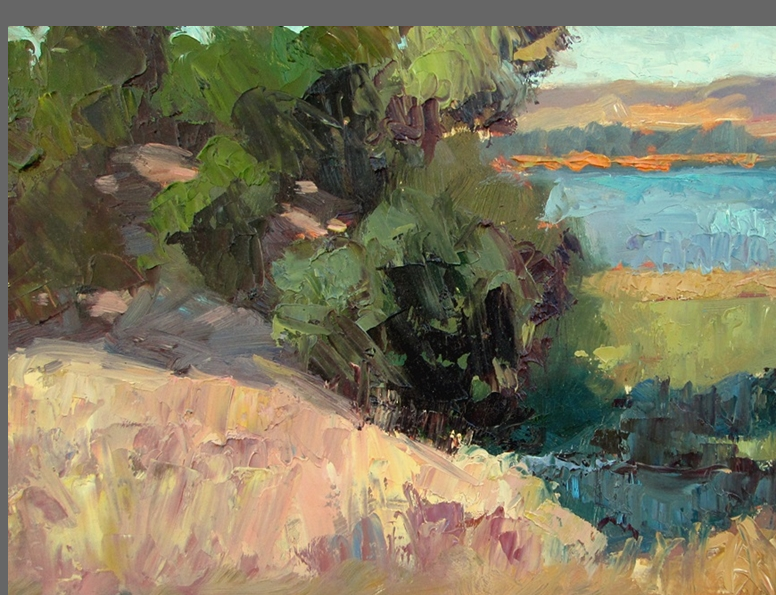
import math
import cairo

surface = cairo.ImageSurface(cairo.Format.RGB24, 776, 595)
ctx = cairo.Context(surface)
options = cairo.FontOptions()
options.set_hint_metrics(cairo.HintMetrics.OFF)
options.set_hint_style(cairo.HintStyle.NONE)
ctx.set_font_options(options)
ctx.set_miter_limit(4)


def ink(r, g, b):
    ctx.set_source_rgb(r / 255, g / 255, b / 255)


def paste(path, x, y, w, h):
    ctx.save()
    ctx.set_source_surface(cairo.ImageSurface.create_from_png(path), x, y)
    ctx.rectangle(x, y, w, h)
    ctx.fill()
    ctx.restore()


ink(102, 102, 102)
ctx.paint()
paste("pic1.png", 8, 26, 768, 569)
surface.write_to_png("screenshot.png")
